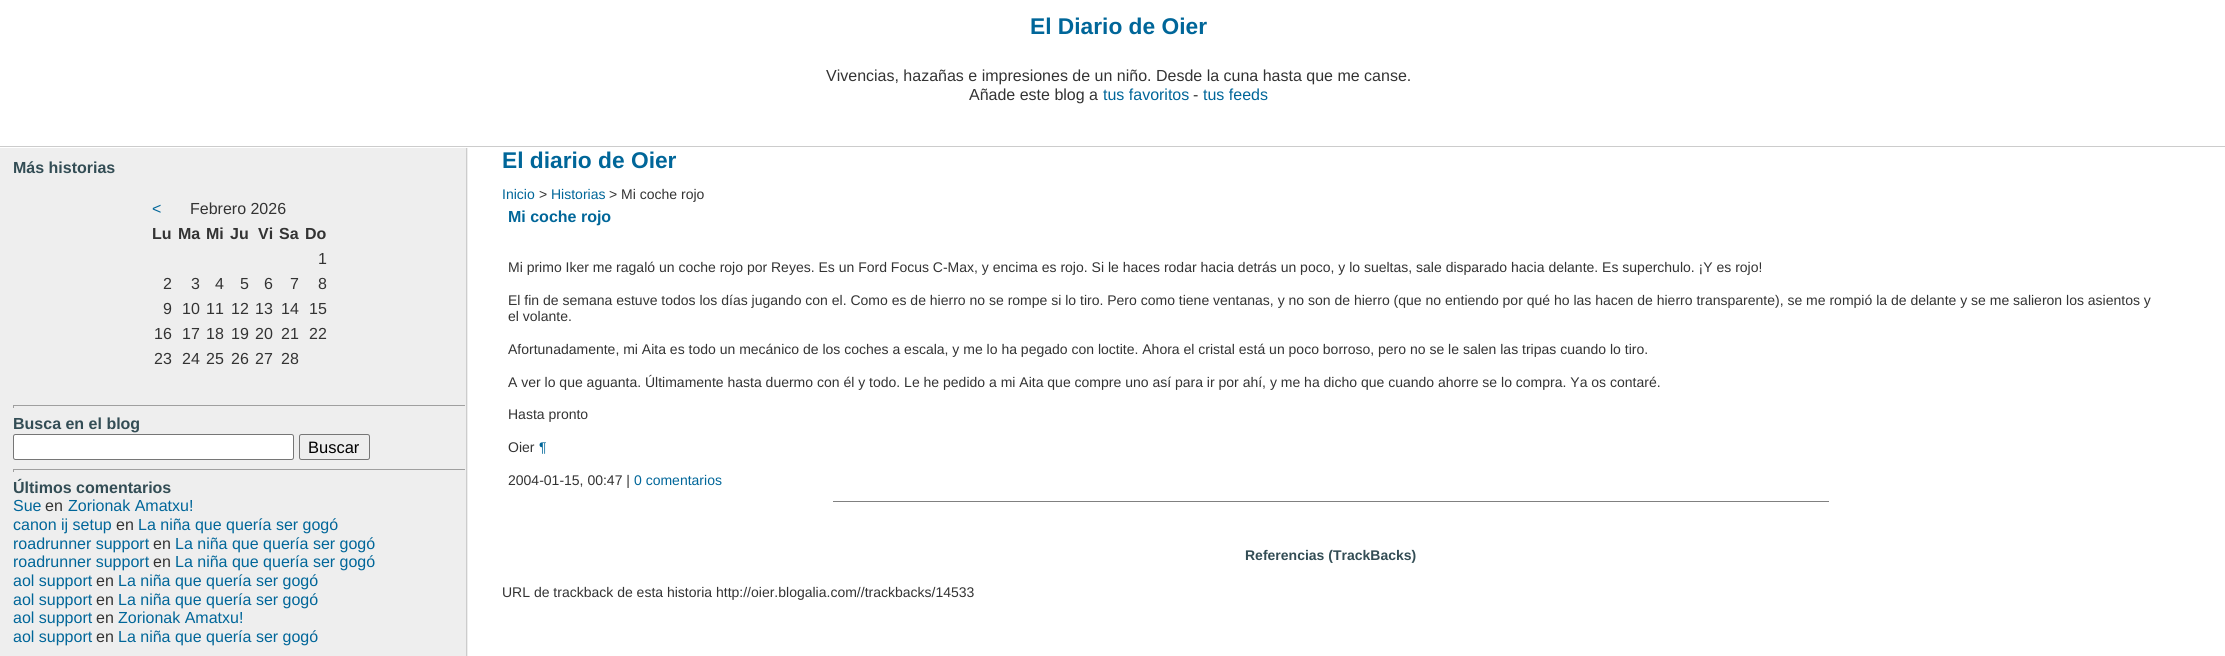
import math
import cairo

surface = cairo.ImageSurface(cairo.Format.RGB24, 2225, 656)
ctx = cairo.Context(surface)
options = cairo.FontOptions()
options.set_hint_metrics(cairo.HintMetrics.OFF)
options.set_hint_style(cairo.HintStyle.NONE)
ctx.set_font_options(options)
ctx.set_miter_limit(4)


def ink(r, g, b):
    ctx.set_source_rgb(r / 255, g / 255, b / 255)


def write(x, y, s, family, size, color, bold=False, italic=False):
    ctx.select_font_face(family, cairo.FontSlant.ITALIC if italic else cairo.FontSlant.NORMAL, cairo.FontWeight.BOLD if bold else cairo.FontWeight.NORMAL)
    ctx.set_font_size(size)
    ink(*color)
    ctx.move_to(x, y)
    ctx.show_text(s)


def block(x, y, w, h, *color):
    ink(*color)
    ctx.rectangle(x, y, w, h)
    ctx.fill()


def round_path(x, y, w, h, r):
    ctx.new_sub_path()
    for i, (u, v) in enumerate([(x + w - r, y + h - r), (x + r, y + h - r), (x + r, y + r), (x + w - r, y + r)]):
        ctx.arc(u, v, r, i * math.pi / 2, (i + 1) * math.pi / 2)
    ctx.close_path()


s1 = dict(family="Liberation Sans", size=22.75, color=(0, 102, 153), bold=True)
s2 = dict(family="Liberation Sans", size=16, color=(51, 51, 51))
s3 = dict(family="Liberation Sans", size=16, color=(0, 102, 153))
s4 = dict(family="Liberation Sans", size=16, color=(51, 77, 85), bold=True)
s5 = dict(family="Liberation Sans", size=16, color=(51, 51, 51), bold=True)
s6 = dict(family="Liberation Sans", size=16.5, color=(0, 0, 0))
s7 = dict(family="Liberation Sans", size=14, color=(0, 102, 153))
s8 = dict(family="Liberation Sans", size=14, color=(51, 51, 51))
s9 = dict(family="Liberation Sans", size=16, color=(0, 102, 153), bold=True)
s10 = dict(family="Liberation Sans", size=14, color=(51, 77, 85), bold=True)

ink(255, 255, 255)
ctx.paint()
block(0, 146, 2225, 1, 204, 204, 204)
write(1030, 34, "El Diario de Oier", **s1)
write(826, 81, "Vivencias, hazañas e impresiones de un niño. Desde la cuna hasta que me canse.", **s2)
write(969, 100, "Añade este blog a", **s2)
write(1103, 100, "tus favoritos", **s3)
write(1193, 100, "-", **s2)
write(1203, 100, "tus feeds", **s3)
block(0, 148, 468, 508, 238, 238, 238)
block(466, 148, 1, 508, 204, 204, 204)
write(13, 173, "Más historias", **s4)
write(152, 214, "<", **s3)
write(190, 214, "Febrero 2026", **s2)
write(152, 239, "Lu", **s5)
write(178, 239, "Ma", **s5)
write(206, 239, "Mi", **s5)
write(230, 239, "Ju", **s5)
write(258, 239, "Vi", **s5)
write(279, 239, "Sa", **s5)
write(305, 239, "Do", **s5)
write(318, 264, "1", **s2)
write(163, 289, "2", **s2)
write(191, 289, "3", **s2)
write(215, 289, "4", **s2)
write(240, 289, "5", **s2)
write(264, 289, "6", **s2)
write(290, 289, "7", **s2)
write(318, 289, "8", **s2)
write(163, 314, "9", **s2)
write(182, 314, "10", **s2)
write(206, 314, "11", **s2)
write(231, 314, "12", **s2)
write(255, 314, "13", **s2)
write(281, 314, "14", **s2)
write(309, 314, "15", **s2)
write(154, 339, "16", **s2)
write(182, 339, "17", **s2)
write(206, 339, "18", **s2)
write(231, 339, "19", **s2)
write(255, 339, "20", **s2)
write(281, 339, "21", **s2)
write(309, 339, "22", **s2)
write(154, 364, "23", **s2)
write(182, 364, "24", **s2)
write(206, 364, "25", **s2)
write(231, 364, "26", **s2)
write(255, 364, "27", **s2)
write(281, 364, "28", **s2)
block(13, 405, 453, 1, 159, 159, 159)
block(465, 405, 1, 3, 238, 238, 238)
block(13, 405, 1, 3, 159, 159, 159)
write(13, 429, "Busca en el blog", **s4)
ink(255, 255, 255)
round_path(13.5, 434.5, 280, 25, 2)
ctx.fill_preserve()
ink(118, 118, 118)
ctx.set_line_width(1)
ctx.stroke()
round_path(299.5, 434.5, 70, 25, 2)
ctx.stroke()
write(308, 453, "Buscar", **s6)
block(13, 469, 453, 1, 159, 159, 159)
block(465, 469, 1, 3, 238, 238, 238)
block(13, 469, 1, 3, 159, 159, 159)
write(13, 493, "Últimos comentarios", **s4)
write(13, 511, "Sue", **s3)
write(45, 511, "en", **s2)
write(68, 511, "Zorionak Amatxu!", **s3)
write(13, 530, "canon ij setup", **s3)
write(116, 530, "en", **s2)
write(138, 530, "La niña que quería ser gogó", **s3)
write(13, 549, "roadrunner support", **s3)
write(153, 549, "en", **s2)
write(175, 549, "La niña que quería ser gogó", **s3)
write(13, 567, "roadrunner support", **s3)
write(153, 567, "en", **s2)
write(175, 567, "La niña que quería ser gogó", **s3)
write(13, 586, "aol support", **s3)
write(96, 586, "en", **s2)
write(118, 586, "La niña que quería ser gogó", **s3)
write(13, 605, "aol support", **s3)
write(96, 605, "en", **s2)
write(118, 605, "La niña que quería ser gogó", **s3)
write(13, 623, "aol support", **s3)
write(96, 623, "en", **s2)
write(118, 623, "Zorionak Amatxu!", **s3)
write(13, 642, "aol support", **s3)
write(96, 642, "en", **s2)
write(118, 642, "La niña que quería ser gogó", **s3)
write(502, 168, "El diario de Oier", **s1)
write(502, 199, "Inicio", **s7)
write(539, 199, ">", **s8)
write(551, 199, "Historias", **s7)
write(609, 199, "> Mi coche rojo", **s8)
write(508, 222, "Mi coche rojo", **s9)
write(508, 272, "Mi primo Iker me ragaló un coche rojo por Reyes. Es un Ford Focus C-Max, y encima es rojo. Si le haces rodar hacia detrás un poco, y lo sueltas, sale disparado hacia delante. Es superchulo. ¡Y es rojo!", **s8)
write(508, 305, "El fin de semana estuve todos los días jugando con el. Como es de hierro no se rompe si lo tiro. Pero como tiene ventanas, y no son de hierro (que no entiendo por qué ho las hacen de hierro transparente), se me rompió la de delante y se me salieron los asientos y", **s8)
write(508, 321, "el volante.", **s8)
write(508, 354, "Afortunadamente, mi Aita es todo un mecánico de los coches a escala, y me lo ha pegado con loctite. Ahora el cristal está un poco borroso, pero no se le salen las tripas cuando lo tiro.", **s8)
write(508, 387, "A ver lo que aguanta. Últimamente hasta duermo con él y todo. Le he pedido a mi Aita que compre uno así para ir por ahí, y me ha dicho que cuando ahorre se lo compra. Ya os contaré.", **s8)
write(508, 419, "Hasta pronto", **s8)
write(508, 452, "Oier", **s8)
write(539, 452, "¶", **s7)
write(508, 485, "2004-01-15, 00:47 |", **s8)
write(634, 485, "0 comentarios", **s7)
block(833, 501, 996, 1, 128, 128, 128)
write(1245, 560, "Referencias (TrackBacks)", **s10)
write(502, 597, "URL de trackback de esta historia http://oier.blogalia.com//trackbacks/14533", **s8)
surface.write_to_png("screenshot.png")
